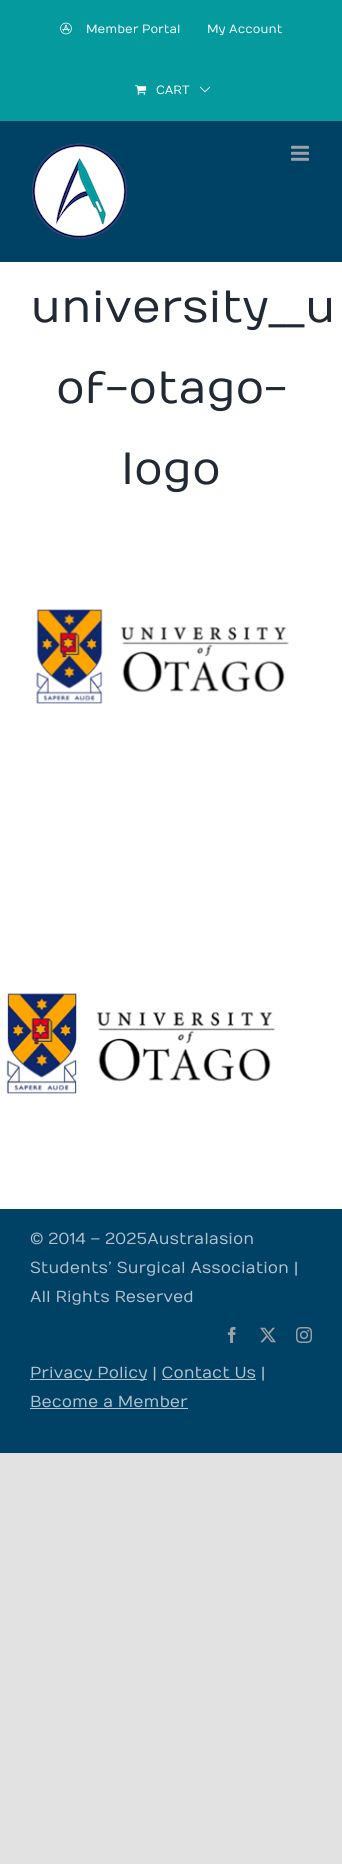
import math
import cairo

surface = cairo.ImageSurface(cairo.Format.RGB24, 342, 1864)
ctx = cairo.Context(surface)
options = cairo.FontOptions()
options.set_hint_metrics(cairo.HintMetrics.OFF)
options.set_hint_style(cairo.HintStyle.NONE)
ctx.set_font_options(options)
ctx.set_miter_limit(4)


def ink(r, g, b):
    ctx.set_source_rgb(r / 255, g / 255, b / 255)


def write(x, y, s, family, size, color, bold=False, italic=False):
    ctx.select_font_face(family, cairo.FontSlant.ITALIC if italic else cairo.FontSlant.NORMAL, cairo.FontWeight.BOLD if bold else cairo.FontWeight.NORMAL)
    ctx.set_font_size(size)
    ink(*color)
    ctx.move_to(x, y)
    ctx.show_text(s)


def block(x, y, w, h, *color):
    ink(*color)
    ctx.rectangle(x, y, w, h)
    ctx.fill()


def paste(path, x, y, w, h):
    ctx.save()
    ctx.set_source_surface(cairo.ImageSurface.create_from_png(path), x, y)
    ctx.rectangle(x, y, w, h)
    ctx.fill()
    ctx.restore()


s1 = dict(family="Numans", size=12, color=(255, 255, 255))
s2 = dict(family="Numans", size=45, color=(33, 41, 52))
s3 = dict(family="Numans", size=16, color=(181, 193, 207))

ink(226, 226, 226)
ctx.paint()
block(0, 262, 342, 947, 255, 255, 255)
block(0, 0, 342, 121, 5, 154, 158)
paste("pic1.png", 60, 22, 12, 13)
write(86, 33, "Member Portal", **s1)
write(207, 33, "My Account", **s1)
paste("pic2.png", 135, 85, 12, 10)
write(156, 94, "CART", **s1)
paste("pic3.png", 199, 86, 12, 7)
block(0, 121, 342, 141, 0, 66, 102)
paste("pic4.png", 32, 143, 95, 96)
paste("pic5.png", 291, 145, 18, 16)
write(30, 322, "university__u", **s2)
write(56, 403, "of-otago-", **s2)
write(121, 484, "logo", **s2)
paste("pic6.png", 36, 609, 253, 95)
paste("pic7.png", 6, 993, 270, 101)
block(0, 1209, 342, 244, 0, 66, 102)
write(30, 1244, "© 2014 – 2025Australasion", **s3)
write(30, 1273, "Students’ Surgical Association |", **s3)
write(30, 1302, "All Rights Reserved", **s3)
paste("pic8.png", 228, 1327, 8, 16)
paste("pic9.png", 260, 1327, 16, 16)
paste("pic10.png", 296, 1327, 16, 16)
block(30, 1379, 117, 1, 181, 193, 207)
write(30, 1378, "Privacy Policy | Contact Us |", **s3)
block(162, 1379, 94, 1, 181, 193, 207)
write(30, 1407, "Become a Member", **s3)
block(30, 1408, 158, 1, 181, 193, 207)
surface.write_to_png("screenshot.png")
